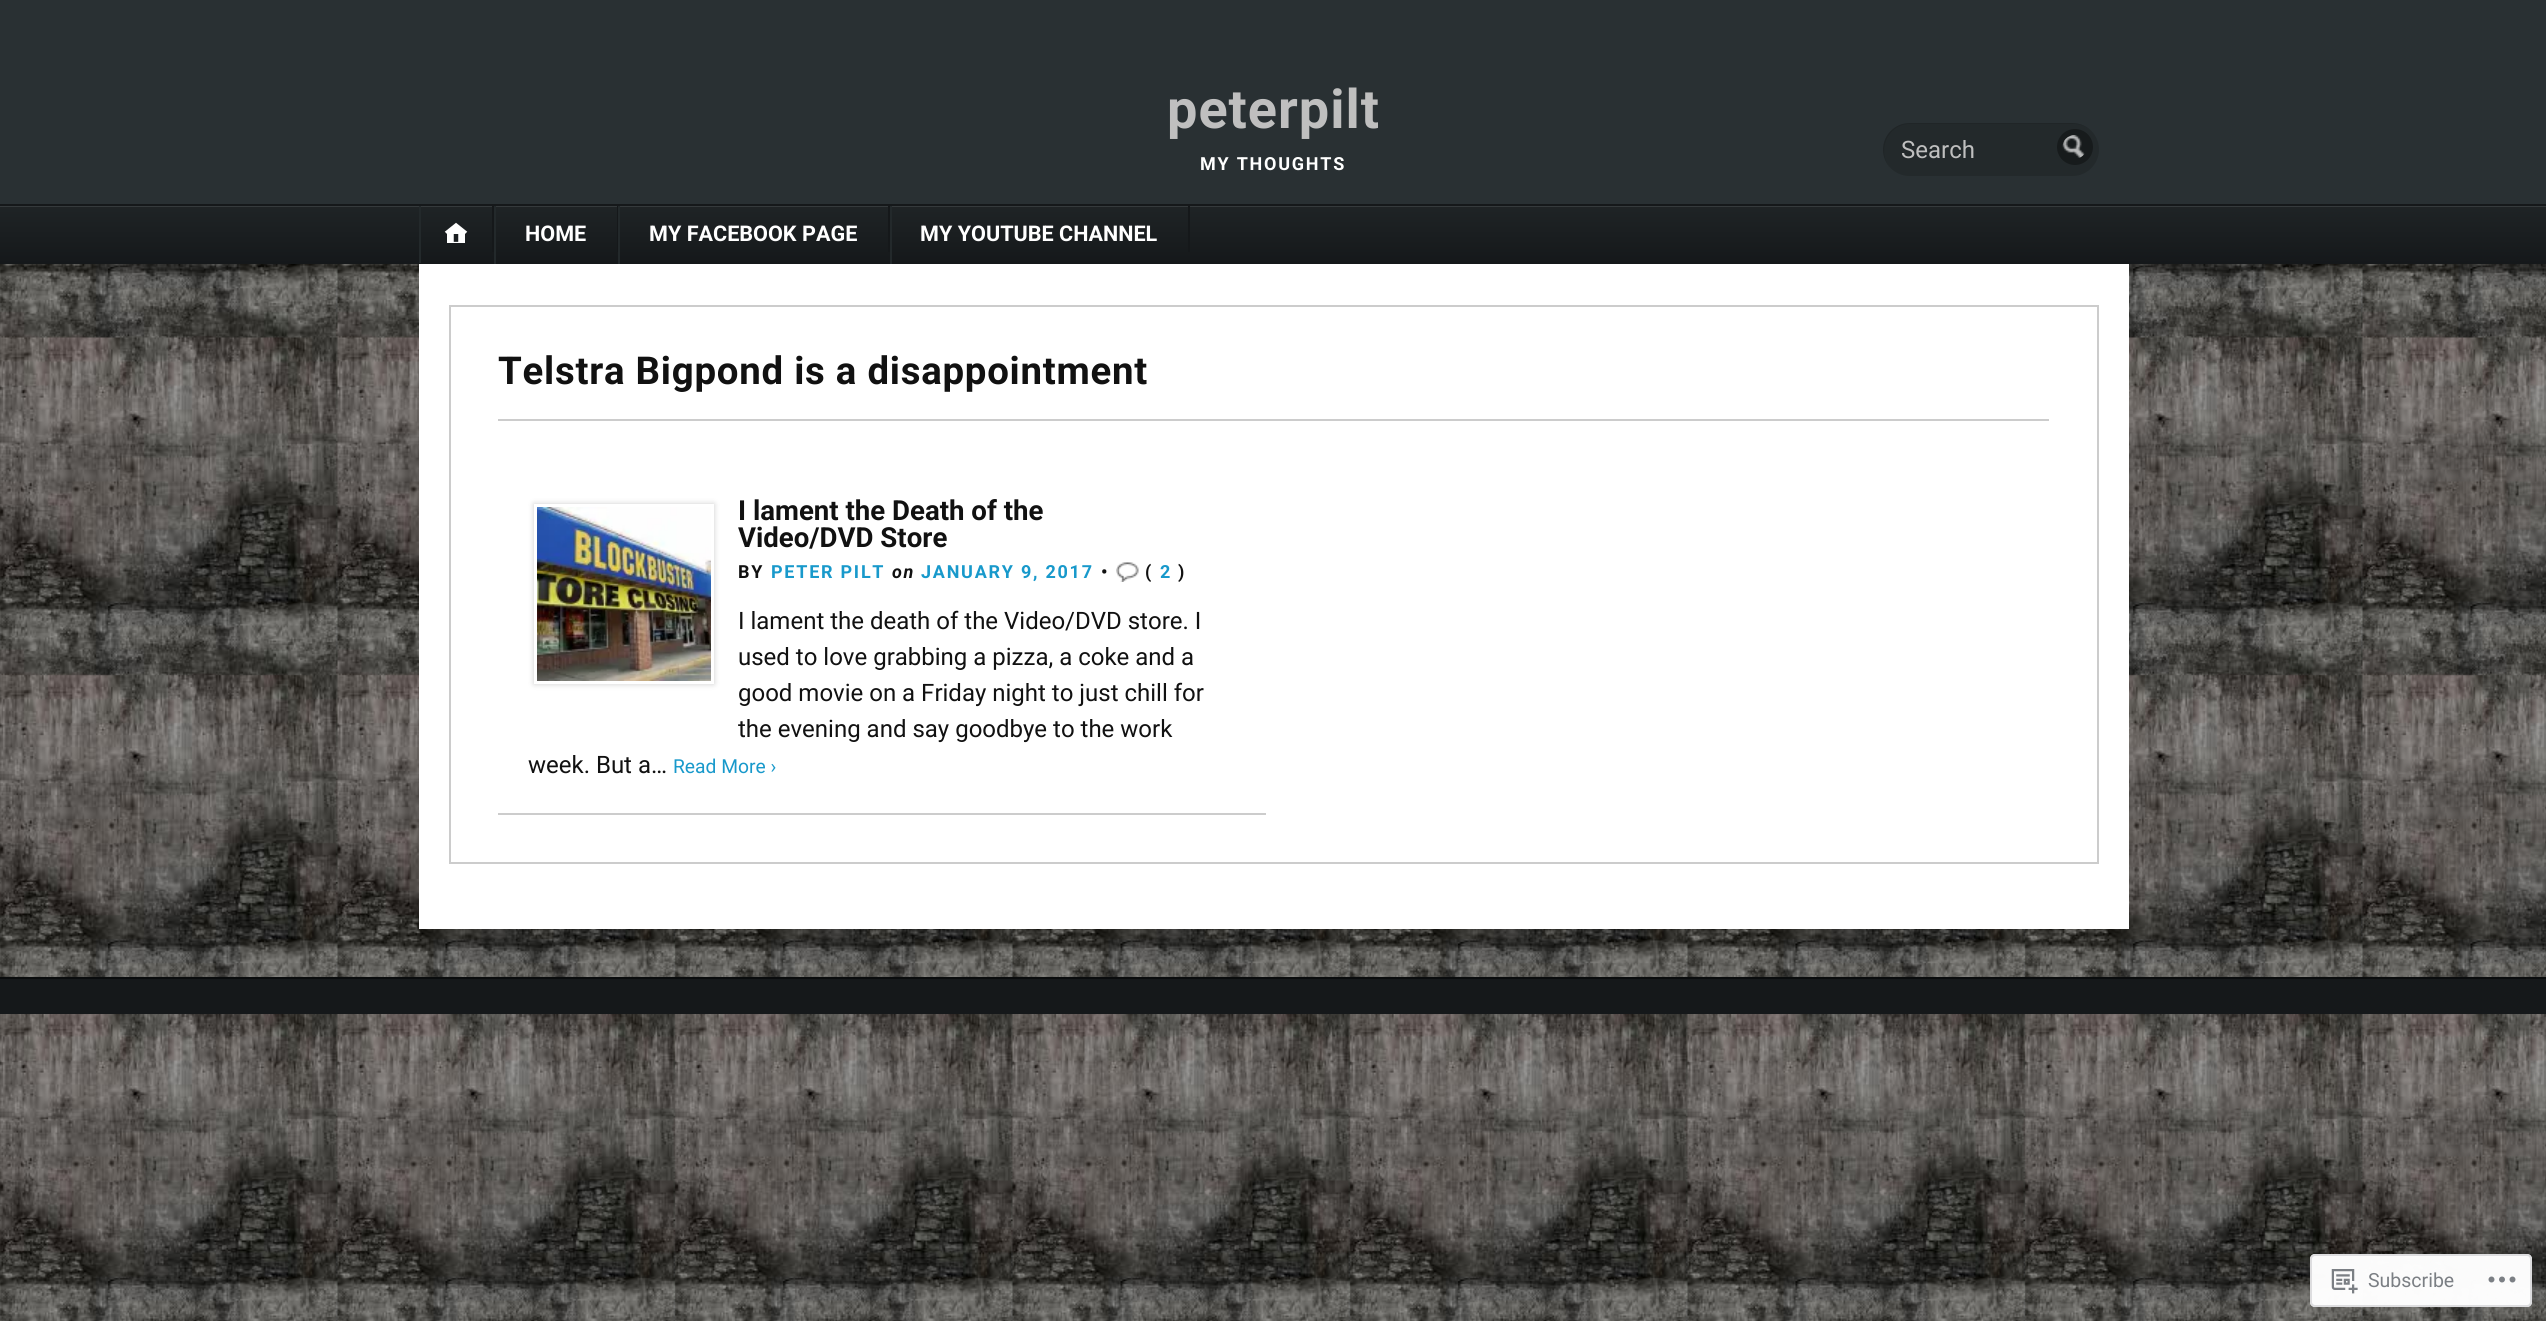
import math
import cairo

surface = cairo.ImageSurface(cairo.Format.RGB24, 2546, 1321)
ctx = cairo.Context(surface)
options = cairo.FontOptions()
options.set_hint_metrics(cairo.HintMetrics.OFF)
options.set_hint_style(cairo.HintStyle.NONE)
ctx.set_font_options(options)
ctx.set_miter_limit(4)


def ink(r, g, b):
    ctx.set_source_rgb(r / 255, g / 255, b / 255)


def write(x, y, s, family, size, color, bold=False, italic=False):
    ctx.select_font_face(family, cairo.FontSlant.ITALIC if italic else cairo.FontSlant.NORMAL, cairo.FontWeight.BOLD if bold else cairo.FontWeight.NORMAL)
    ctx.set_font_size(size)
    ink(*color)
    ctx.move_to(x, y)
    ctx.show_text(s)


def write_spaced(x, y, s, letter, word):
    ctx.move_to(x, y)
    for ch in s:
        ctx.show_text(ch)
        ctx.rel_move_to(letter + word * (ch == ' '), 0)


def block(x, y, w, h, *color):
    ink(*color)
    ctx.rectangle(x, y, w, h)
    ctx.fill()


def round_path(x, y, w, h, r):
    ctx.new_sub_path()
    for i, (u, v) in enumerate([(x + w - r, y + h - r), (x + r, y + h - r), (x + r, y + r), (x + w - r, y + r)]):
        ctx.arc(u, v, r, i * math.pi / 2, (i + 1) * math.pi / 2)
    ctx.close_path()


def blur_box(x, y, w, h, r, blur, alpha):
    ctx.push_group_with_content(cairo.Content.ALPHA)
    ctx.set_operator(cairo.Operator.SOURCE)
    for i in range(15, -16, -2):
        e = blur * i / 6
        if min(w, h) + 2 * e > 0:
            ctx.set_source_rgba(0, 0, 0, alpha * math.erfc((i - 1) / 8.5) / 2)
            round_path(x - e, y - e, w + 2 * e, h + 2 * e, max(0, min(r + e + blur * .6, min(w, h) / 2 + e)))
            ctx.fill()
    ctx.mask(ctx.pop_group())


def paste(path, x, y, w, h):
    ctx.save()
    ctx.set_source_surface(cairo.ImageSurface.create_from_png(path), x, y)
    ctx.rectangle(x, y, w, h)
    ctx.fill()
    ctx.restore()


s1 = dict(family="Roboto", size=24, color=(191, 191, 191))
s2 = dict(family="Roboto", size=21.6, color=(255, 255, 255), bold=True)
s3 = dict(family="Roboto", size=27.6, color=(17, 17, 17), bold=True)
s4 = dict(family="Roboto", size=24, color=(17, 17, 17))
s5 = dict(family="Roboto", size=19.25, color=(24, 153, 203))
s6 = dict(family="Roboto", size=19.5, color=(123, 127, 132))

ink(255, 255, 255)
ctx.paint()
paste("pic1.png", 0, 264, 2546, 1057)
block(0, 0, 2546, 204, 41, 48, 51)
ctx.select_font_face("Roboto", cairo.FontSlant.NORMAL, cairo.FontWeight.BOLD)
ctx.set_font_size(54)
ink(191, 191, 191)
write_spaced(1167, 128, "peterpilt", 1, 0)
ctx.set_font_size(18)
ink(255, 255, 255)
write_spaced(1200, 170, "MY THOUGHTS", 1.75, 0)
ink(35, 41, 43)
round_path(1883, 123, 216, 53, 26.5)
ctx.fill()
ctx.set_source_rgba(0, 0, 0, 0.1)
ctx.new_path()
ctx.move_to(1910, 124)
ctx.line_to(2074, 124)
ctx.curve_to(2081, 124, 2088, 127, 2093, 132)
ctx.curve_to(2088, 127, 2081, 123, 2072, 123)
ctx.line_to(1910, 123)
ctx.curve_to(1895, 123, 1883, 135, 1883, 150)
ctx.curve_to(1883, 157, 1886, 164, 1891, 169)
ctx.curve_to(1876, 152, 1887, 124, 1910, 124)
ctx.close_path()
ctx.fill()
write(1901, 158, "Search", **s1)
ink(23, 27, 28)
ctx.new_path()
ctx.arc(2075, 147, 18, 0, 2 * math.pi)
ctx.fill()
paste("pic2.png", 2062, 135, 23, 23)
gradient = cairo.LinearGradient(1274, 147, 1274, 206)
gradient.add_color_stop_rgba(0, 0.122, 0.141, 0.149, 1)
gradient.add_color_stop_rgba(1, 0.082, 0.094, 0.102, 1)
ctx.set_source(gradient)
ctx.rectangle(0, 204, 2546, 2)
ctx.fill()
gradient = cairo.LinearGradient(1274, 205, 1274, 264)
gradient.add_color_stop_rgba(0, 0.122, 0.141, 0.149, 1)
gradient.add_color_stop_rgba(1, 0.082, 0.094, 0.102, 1)
ctx.set_source(gradient)
ctx.rectangle(0, 207, 2546, 57)
ctx.fill()
ctx.save()
ctx.rectangle(0, 206, 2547, 58)
ctx.clip()
ink(53, 58, 60)
ctx.set_fill_rule(cairo.FillRule.EVEN_ODD)
ctx.new_path()
ctx.move_to(-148, 57)
ctx.line_to(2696, 57)
ctx.line_to(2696, 412)
ctx.line_to(-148, 412)
ctx.close_path()
ctx.move_to(0, 207)
ctx.line_to(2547, 207)
ctx.curve_to(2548, 207, 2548, 208, 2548, 208)
ctx.line_to(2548, 267)
ctx.curve_to(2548, 268, 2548, 268, 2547, 268)
ctx.line_to(0, 268)
ctx.curve_to(-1, 268, -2, 268, -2, 267)
ctx.line_to(-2, 208)
ctx.curve_to(-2, 208, -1, 207, 0, 207)
ctx.close_path()
ctx.fill()
ctx.restore()
block(492, 206, 2, 46, 21, 24, 26)
block(419, 206, 2, 57, 35, 41, 43)
paste("pic3.png", 444, 222, 24, 21)
block(617, 206, 1, 46, 21, 24, 26)
block(494, 206, 2, 58, 35, 41, 43)
write(525, 241, "HOME", **s2)
block(888, 206, 2, 46, 21, 24, 26)
block(618, 206, 2, 58, 35, 41, 43)
write(649, 241, "MY FACEBOOK PAGE", **s2)
block(1188, 206, 2, 46, 21, 24, 26)
block(890, 206, 2, 58, 35, 41, 43)
write(920, 241, "MY YOUTUBE CHANNEL", **s2)
block(419, 264, 1710, 665, 255, 255, 255)
ctx.rectangle(450, 306, 1648, 557)
ink(204, 204, 204)
ctx.stroke()
block(498, 419, 1551, 2, 204, 204, 204)
ctx.set_font_size(38.4)
ink(17, 17, 17)
write_spaced(498, 384, "Telstra Bigpond is a disappointment", 0.75, 0)
block(498, 813, 768, 2, 204, 204, 204)
ctx.save()
ctx.set_fill_rule(cairo.FillRule.EVEN_ODD)
ctx.new_path()
ctx.move_to(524, 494)
ctx.line_to(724, 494)
ctx.line_to(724, 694)
ctx.line_to(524, 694)
ctx.close_path()
ctx.move_to(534, 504)
ctx.line_to(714, 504)
ctx.line_to(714, 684)
ctx.line_to(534, 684)
ctx.close_path()
ctx.clip()
ink(0, 0, 0)
blur_box(534, 504, 180, 180, 0, 3, 0.2)
ctx.restore()
paste("pic4.png", 537, 507, 174, 174)
write(738, 520, "I lament the Death of the", **s3)
write(738, 547, "Video/DVD Store", **s3)
ctx.set_font_size(18)
write_spaced(738, 578, "BY", 1.75, 0)
ink(24, 153, 203)
write_spaced(771, 578, "PETER PILT", 1.75, 0)
ctx.select_font_face("Roboto", cairo.FontSlant.ITALIC, cairo.FontWeight.BOLD)
ink(17, 17, 17)
write_spaced(892, 578, "on", 1.75, 0)
ctx.select_font_face("Roboto", cairo.FontSlant.NORMAL, cairo.FontWeight.BOLD)
ink(24, 153, 203)
write_spaced(921, 578, "JANUARY 9, 2017", 1.75, 0)
ink(17, 17, 17)
write_spaced(1101, 578, "•", 1.75, 0)
paste("pic5.png", 1116, 562, 23, 20)
write_spaced(1145, 578, "(", 1.75, 0)
ink(24, 153, 203)
write_spaced(1160, 578, "2", 1.75, 0)
ink(17, 17, 17)
write_spaced(1178, 578, ")", 1.75, 0)
write(738, 629, "I lament the death of the Video/DVD store. I", **s4)
write(738, 665, "used to love grabbing a pizza, a coke and a", **s4)
write(738, 701, "good movie on a Friday night to just chill for", **s4)
write(738, 737, "the evening and say goodbye to the work", **s4)
write(528, 773, "week. But a…", **s4)
write(673, 773, "Read More ›", **s5)
block(0, 979, 2546, 35, 21, 24, 26)
block(0, 977, 2546, 2, 10, 12, 13)
ctx.set_source_rgba(1, 1, 1, 0.98)
round_path(2310, 1254, 222, 53, 5)
ctx.fill()
round_path(2311, 1255, 220, 51, 4)
ctx.set_source_rgba(0.863, 0.863, 0.871, 0.98)
ctx.stroke()
paste("pic6.png", 2331, 1269, 27, 25)
write(2368, 1287, "Subscribe", **s6)
paste("pic7.png", 2488, 1276, 28, 7)
surface.write_to_png("screenshot.png")
